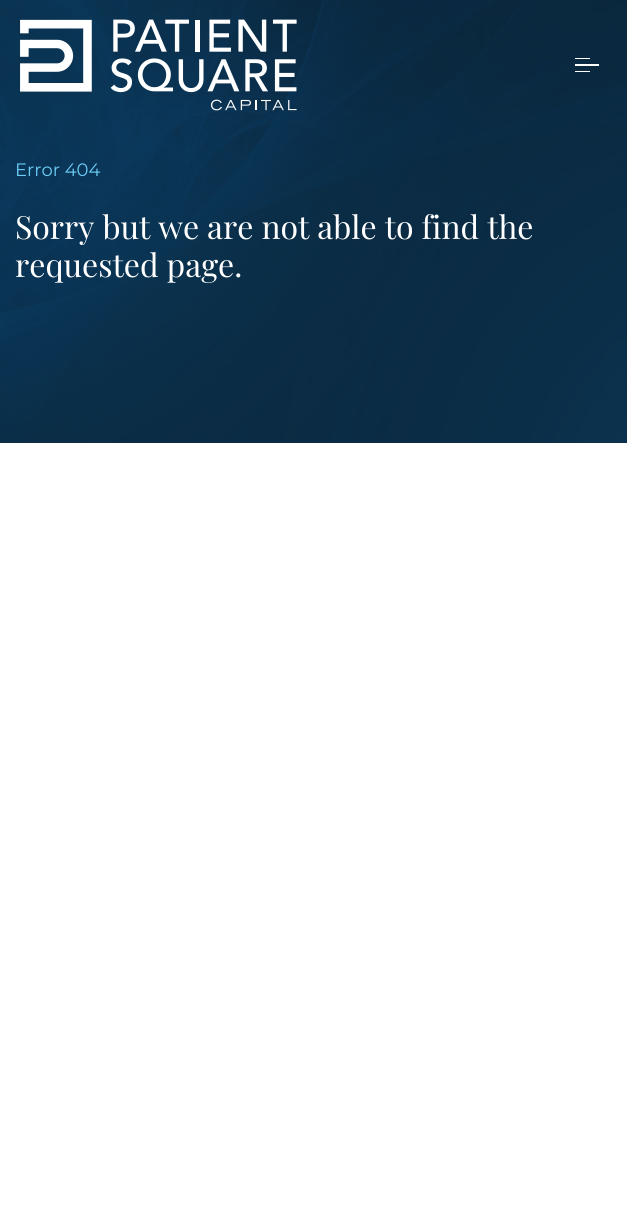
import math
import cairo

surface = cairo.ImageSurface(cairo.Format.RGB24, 627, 1225)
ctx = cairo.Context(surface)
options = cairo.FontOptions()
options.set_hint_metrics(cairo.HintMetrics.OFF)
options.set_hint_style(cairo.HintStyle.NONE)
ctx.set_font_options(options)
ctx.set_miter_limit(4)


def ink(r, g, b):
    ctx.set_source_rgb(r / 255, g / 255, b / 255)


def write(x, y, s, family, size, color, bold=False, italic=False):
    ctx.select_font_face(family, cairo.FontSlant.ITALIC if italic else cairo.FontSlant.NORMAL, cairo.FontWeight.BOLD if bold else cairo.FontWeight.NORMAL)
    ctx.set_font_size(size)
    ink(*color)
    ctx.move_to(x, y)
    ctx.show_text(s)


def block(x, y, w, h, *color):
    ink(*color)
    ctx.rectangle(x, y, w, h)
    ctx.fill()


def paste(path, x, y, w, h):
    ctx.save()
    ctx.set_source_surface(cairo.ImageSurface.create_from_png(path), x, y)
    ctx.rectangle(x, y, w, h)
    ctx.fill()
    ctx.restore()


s1 = dict(family="Montserrat", size=18, color=(106, 204, 243))
s2 = dict(family="Playfair Display", size=32, color=(255, 255, 255))

ink(255, 255, 255)
ctx.paint()
paste("pic2.png", 0, 0, 627, 443)
paste("pic1.png", 20, 19, 277, 92)
block(575, 58, 15, 1, 255, 255, 255)
block(575, 64, 24, 2, 255, 255, 255)
block(575, 71, 15, 1, 255, 255, 255)
write(15, 176, "Error 404", **s1)
write(15, 239, "Sorry but we are not able to find the", **s2)
write(15, 277, "requested page.", **s2)
surface.write_to_png("screenshot.png")
